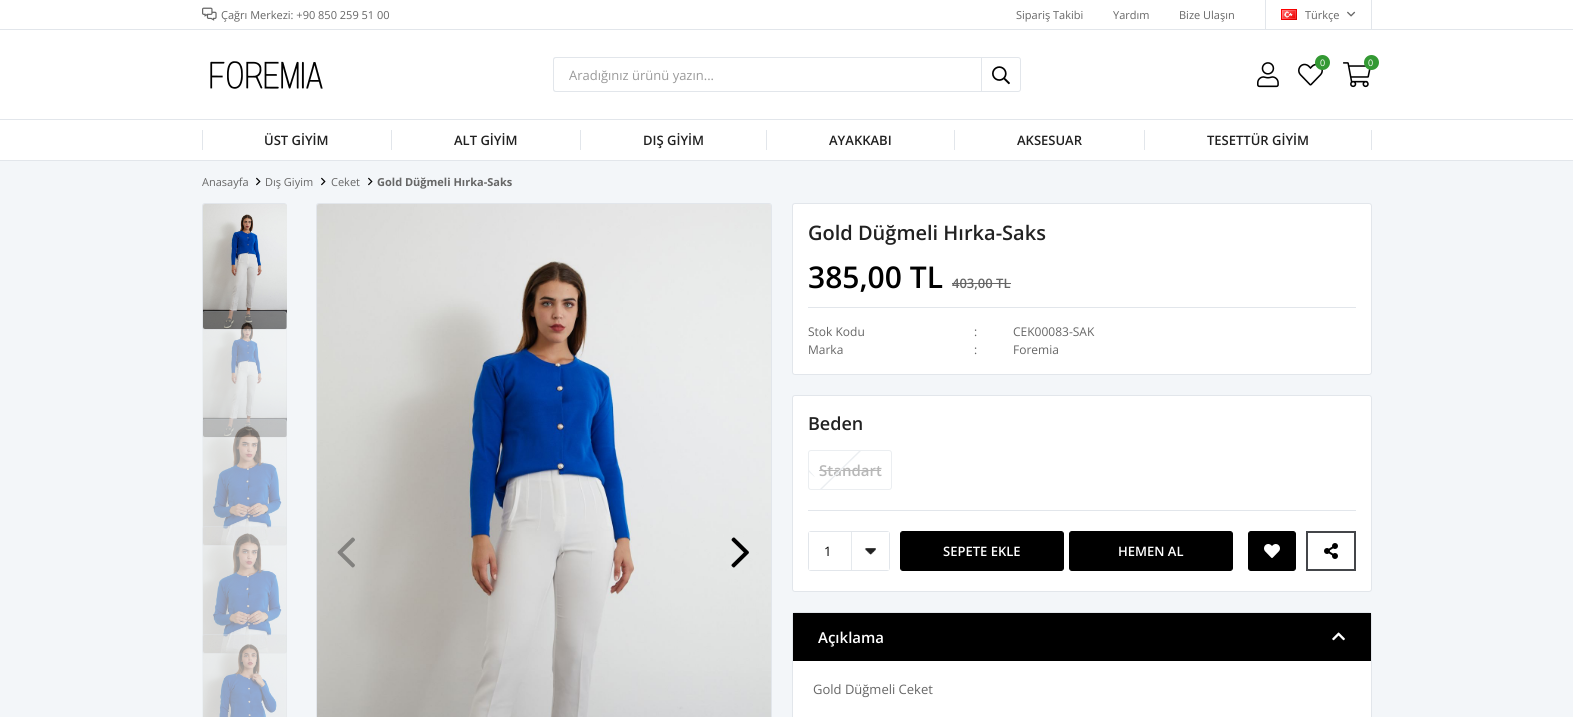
import math
import cairo

surface = cairo.ImageSurface(cairo.Format.RGB24, 1573, 717)
ctx = cairo.Context(surface)
options = cairo.FontOptions()
options.set_hint_metrics(cairo.HintMetrics.OFF)
options.set_hint_style(cairo.HintStyle.NONE)
ctx.set_font_options(options)
ctx.set_miter_limit(4)


def ink(r, g, b):
    ctx.set_source_rgb(r / 255, g / 255, b / 255)


def write(x, y, s, family, size, color, bold=False, italic=False):
    ctx.select_font_face(family, cairo.FontSlant.ITALIC if italic else cairo.FontSlant.NORMAL, cairo.FontWeight.BOLD if bold else cairo.FontWeight.NORMAL)
    ctx.set_font_size(size)
    ink(*color)
    ctx.move_to(x, y)
    ctx.show_text(s)


def block(x, y, w, h, *color):
    ink(*color)
    ctx.rectangle(x, y, w, h)
    ctx.fill()


def round_path(x, y, w, h, r):
    ctx.new_sub_path()
    for i, (u, v) in enumerate([(x + w - r, y + h - r), (x + r, y + h - r), (x + r, y + r), (x + w - r, y + r)]):
        ctx.arc(u, v, r, i * math.pi / 2, (i + 1) * math.pi / 2)
    ctx.close_path()


def paste(path, x, y, w, h):
    ctx.save()
    ctx.set_source_surface(cairo.ImageSurface.create_from_png(path), x, y)
    ctx.rectangle(x, y, w, h)
    ctx.fill()
    ctx.restore()


s1 = dict(family="Open Sans", size=11, color=(102, 102, 102))
s2 = dict(family="Open Sans", size=13, color=(154, 154, 154))
s3 = dict(family="Open Sans", size=9, color=(255, 255, 255))
s4 = dict(family="Open Sans SemiBold", size=13, color=(33, 33, 33))
s5 = dict(family="Open Sans", size=11, color=(102, 102, 102), bold=True)
s6 = dict(family="Open Sans SemiBold", size=20, color=(33, 33, 33))
s7 = dict(family="Open Sans SemiBold", size=30, color=(0, 0, 0))
s8 = dict(family="Open Sans SemiBold", size=13, color=(102, 102, 102))
s9 = dict(family="Open Sans", size=12, color=(102, 102, 102))
s10 = dict(family="Open Sans SemiBold", size=18, color=(33, 33, 33))
s11 = dict(family="Open Sans SemiBold", size=15, color=(184, 184, 184))
s12 = dict(family="Open Sans", size=13, color=(0, 0, 0))
s13 = dict(family="Open Sans SemiBold", size=13, color=(255, 255, 255))
s14 = dict(family="Open Sans SemiBold", size=15, color=(255, 255, 255))
s15 = dict(family="Open Sans", size=13, color=(102, 102, 102))

ink(243, 246, 249)
ctx.paint()
block(0, 0, 1573, 160, 255, 255, 255)
block(0, 29, 1573, 1, 226, 230, 235)
paste("pic1.png", 202, 7, 15, 14)
write(221, 19, "Çağrı Merkezi: +90 850 259 51 00", **s1)
write(1016, 19, "Sipariş Takibi", **s1)
write(1113, 19, "Yardım", **s1)
write(1179, 19, "Bize Ulaşın", **s1)
block(1371, 0, 1, 30, 226, 230, 235)
block(1265, 0, 1, 30, 226, 230, 235)
paste("pic2.png", 1281, 9, 16, 11)
write(1305, 19, "Türkçe", **s1)
paste("pic3.png", 1347, 11, 9, 6)
block(0, 119, 1573, 1, 226, 230, 235)
paste("pic4.png", 210, 61, 113, 28)
ctx.set_fill_rule(cairo.FillRule.EVEN_ODD)
ctx.new_path()
ctx.move_to(556, 57)
ctx.line_to(981, 57)
ctx.line_to(981, 92)
ctx.line_to(556, 92)
ctx.curve_to(554, 92, 553, 91, 553, 89)
ctx.line_to(553, 60)
ctx.curve_to(553, 58, 554, 57, 556, 57)
ctx.close_path()
ctx.move_to(556, 58)
ctx.line_to(981, 58)
ctx.line_to(981, 91)
ctx.line_to(556, 91)
ctx.curve_to(555, 91, 554, 90, 554, 89)
ctx.line_to(554, 60)
ctx.curve_to(554, 59, 555, 58, 556, 58)
ctx.close_path()
ctx.fill()
write(569, 80, "Aradığınız ürünü yazın...", **s2)
ctx.new_path()
ctx.move_to(981.5, 57.5)
ctx.line_to(1018, 57.5)
ctx.curve_to(1019.5, 57.5, 1020.5, 58.5, 1020.5, 60)
ctx.line_to(1020.5, 89)
ctx.curve_to(1020.5, 90.5, 1019.5, 91.5, 1018, 91.5)
ctx.line_to(981.5, 91.5)
ctx.close_path()
ink(226, 230, 235)
ctx.set_line_width(1)
ctx.stroke()
paste("pic5.png", 992, 66, 18, 19)
paste("pic6.png", 1257, 62, 22, 26)
paste("pic7.png", 1298, 63, 25, 23)
ink(51, 153, 51)
ctx.arc(1322.5, 62.5, 7.5, 0, 2 * math.pi)
ctx.fill()
write(1320, 66, "0", **s3)
paste("pic8.png", 1343, 62, 28, 26)
ink(51, 153, 51)
ctx.arc(1371.5, 62.5, 7.5, 0, 2 * math.pi)
ctx.fill()
write(1368, 66, "0", **s3)
block(0, 160, 1573, 1, 226, 230, 235)
block(202, 130, 1, 20, 226, 230, 235)
write(264, 145, "ÜST GİYİM", **s4)
block(391, 130, 1, 20, 226, 230, 235)
write(454, 145, "ALT GİYİM", **s4)
block(580, 130, 1, 20, 226, 230, 235)
write(643, 145, "DIŞ GİYİM", **s4)
block(766, 130, 1, 20, 226, 230, 235)
write(829, 145, "AYAKKABI", **s4)
block(954, 130, 1, 20, 226, 230, 235)
write(1017, 145, "AKSESUAR", **s4)
block(1144, 130, 1, 20, 226, 230, 235)
write(1207, 145, "TESETTÜR GİYİM", **s4)
block(1371, 130, 1, 20, 226, 230, 235)
write(202, 186, "Anasayfa", **s1)
paste("pic9.png", 256, 177, 5, 9)
write(265, 186, "Dış Giyim", **s1)
paste("pic9.png", 321, 177, 5, 9)
write(331, 186, "Ceket", **s1)
paste("pic9.png", 368, 177, 5, 9)
write(377, 186, "Gold Düğmeli Hırka-Saks", **s5)
round_path(202.5, 203.5, 84, 126, 2.5)
ink(226, 230, 235)
ctx.stroke()
paste("pic10.png", 203, 204, 84, 125)
round_path(202.5, 311.5, 84, 126, 2.5)
ctx.set_source_rgba(0.886, 0.902, 0.922, 0.4)
ctx.stroke()
paste("pic11.png", 203, 312, 84, 125)
round_path(202.5, 419.5, 84, 126, 2.5)
ctx.stroke()
paste("pic12.png", 203, 420, 84, 125)
round_path(202.5, 526.5, 84, 127, 2.5)
ctx.stroke()
paste("pic13.png", 203, 527, 84, 126)
round_path(202.5, 634.5, 84, 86, 2.5)
ctx.stroke()
paste("pic14.png", 203, 635, 84, 82)
round_path(316.5, 203.5, 455, 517, 2.5)
ink(226, 230, 235)
ctx.stroke()
paste("pic15.png", 317, 204, 454, 513)
paste("pic16.png", 337, 537, 18, 31)
paste("pic17.png", 731, 537, 18, 31)
ink(255, 255, 255)
round_path(792.5, 203.5, 579, 171, 2.5)
ctx.fill_preserve()
ink(226, 230, 235)
ctx.stroke()
write(808, 240, "Gold Düğmeli Hırka-Saks", **s6)
block(808, 307, 548, 1, 226, 230, 235)
write(808, 288, "385,00 TL", **s7)
write(952, 288, "403,00 TL", **s8)
block(952, 283, 59, 1, 102, 102, 102)
write(808, 336, "Stok Kodu", **s9)
write(974, 336, ":", **s9)
write(1013, 336, "CEK00083-SAK", **s9)
write(808, 354, "Marka", **s9)
write(974, 354, ":", **s9)
write(1013, 354, "Foremia", **s9)
ink(255, 255, 255)
round_path(792.5, 395.5, 579, 196, 2.5)
ctx.fill_preserve()
ink(226, 230, 235)
ctx.stroke()
block(808, 510, 548, 1, 226, 230, 235)
write(808, 430, "Beden", **s10)
round_path(808.5, 450.5, 83, 39, 2.5)
ink(235, 238, 241)
ctx.stroke()
write(819, 476, "Standart", **s11)
block(819, 470, 62, 1, 184, 184, 184)
ink(235, 238, 241)
ctx.set_fill_rule(cairo.FillRule.WINDING)
ctx.new_path()
ctx.move_to(809, 470)
ctx.line_to(815, 477)
ctx.curve_to(816, 478, 814.5, 476.5, 814, 476.5)
ctx.line_to(809, 472)
ctx.close_path()
ctx.move_to(861, 451)
ctx.line_to(822, 489)
ctx.line_to(820, 489)
ctx.line_to(859, 451)
ctx.close_path()
ctx.fill()
gradient = cairo.LinearGradient(839, 470, 841, 471)
gradient.add_color_stop_rgba(0, 0.922, 0.933, 0.945, 0)
gradient.add_color_stop_rgba(0, 0.922, 0.933, 0.945, 1)
gradient.add_color_stop_rgba(0.5, 0.922, 0.933, 0.945, 1)
gradient.add_color_stop_rgba(0.5, 0.922, 0.933, 0.945, 0)
ctx.set_source(gradient)
ctx.new_path()
ctx.move_to(861, 451)
ctx.line_to(822, 489)
ctx.line_to(820, 489)
ctx.line_to(859, 451)
ctx.close_path()
ctx.fill()
round_path(808.5, 531.5, 81, 39, 2.5)
ink(226, 230, 235)
ctx.stroke()
block(809, 532, 80, 38, 255, 255, 255)
paste("pic18.png", 851, 532, 25, 38)
write(824, 556, "1", **s12)
round_path(900.5, 531.5, 163, 39, 2.5)
ctx.fill_preserve()
ctx.stroke()
write(943, 556, "SEPETE EKLE", **s13)
ink(0, 0, 0)
round_path(1069.5, 531.5, 163, 39, 2.5)
ctx.fill_preserve()
ctx.stroke()
write(1118, 556, "HEMEN AL", **s13)
ink(0, 0, 0)
round_path(1248.5, 531.5, 47, 39, 2.5)
ctx.fill_preserve()
ctx.stroke()
paste("pic19.png", 1264, 544, 16, 14)
ctx.rectangle(1307, 532, 48, 38)
ink(68, 70, 74)
ctx.set_line_width(2)
ctx.stroke()
paste("pic20.png", 1324, 543, 14, 16)
ink(255, 255, 255)
round_path(792.5, 612.5, 579, 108, 2.5)
ctx.fill_preserve()
ink(226, 230, 235)
ctx.set_line_width(1)
ctx.stroke()
block(793, 613, 578, 48, 0, 0, 0)
write(818, 643, "Açıklama", **s14)
paste("pic21.png", 1332, 632, 13, 9)
write(813, 694, "Gold Düğmeli Ceket", **s15)
surface.write_to_png("screenshot.png")
